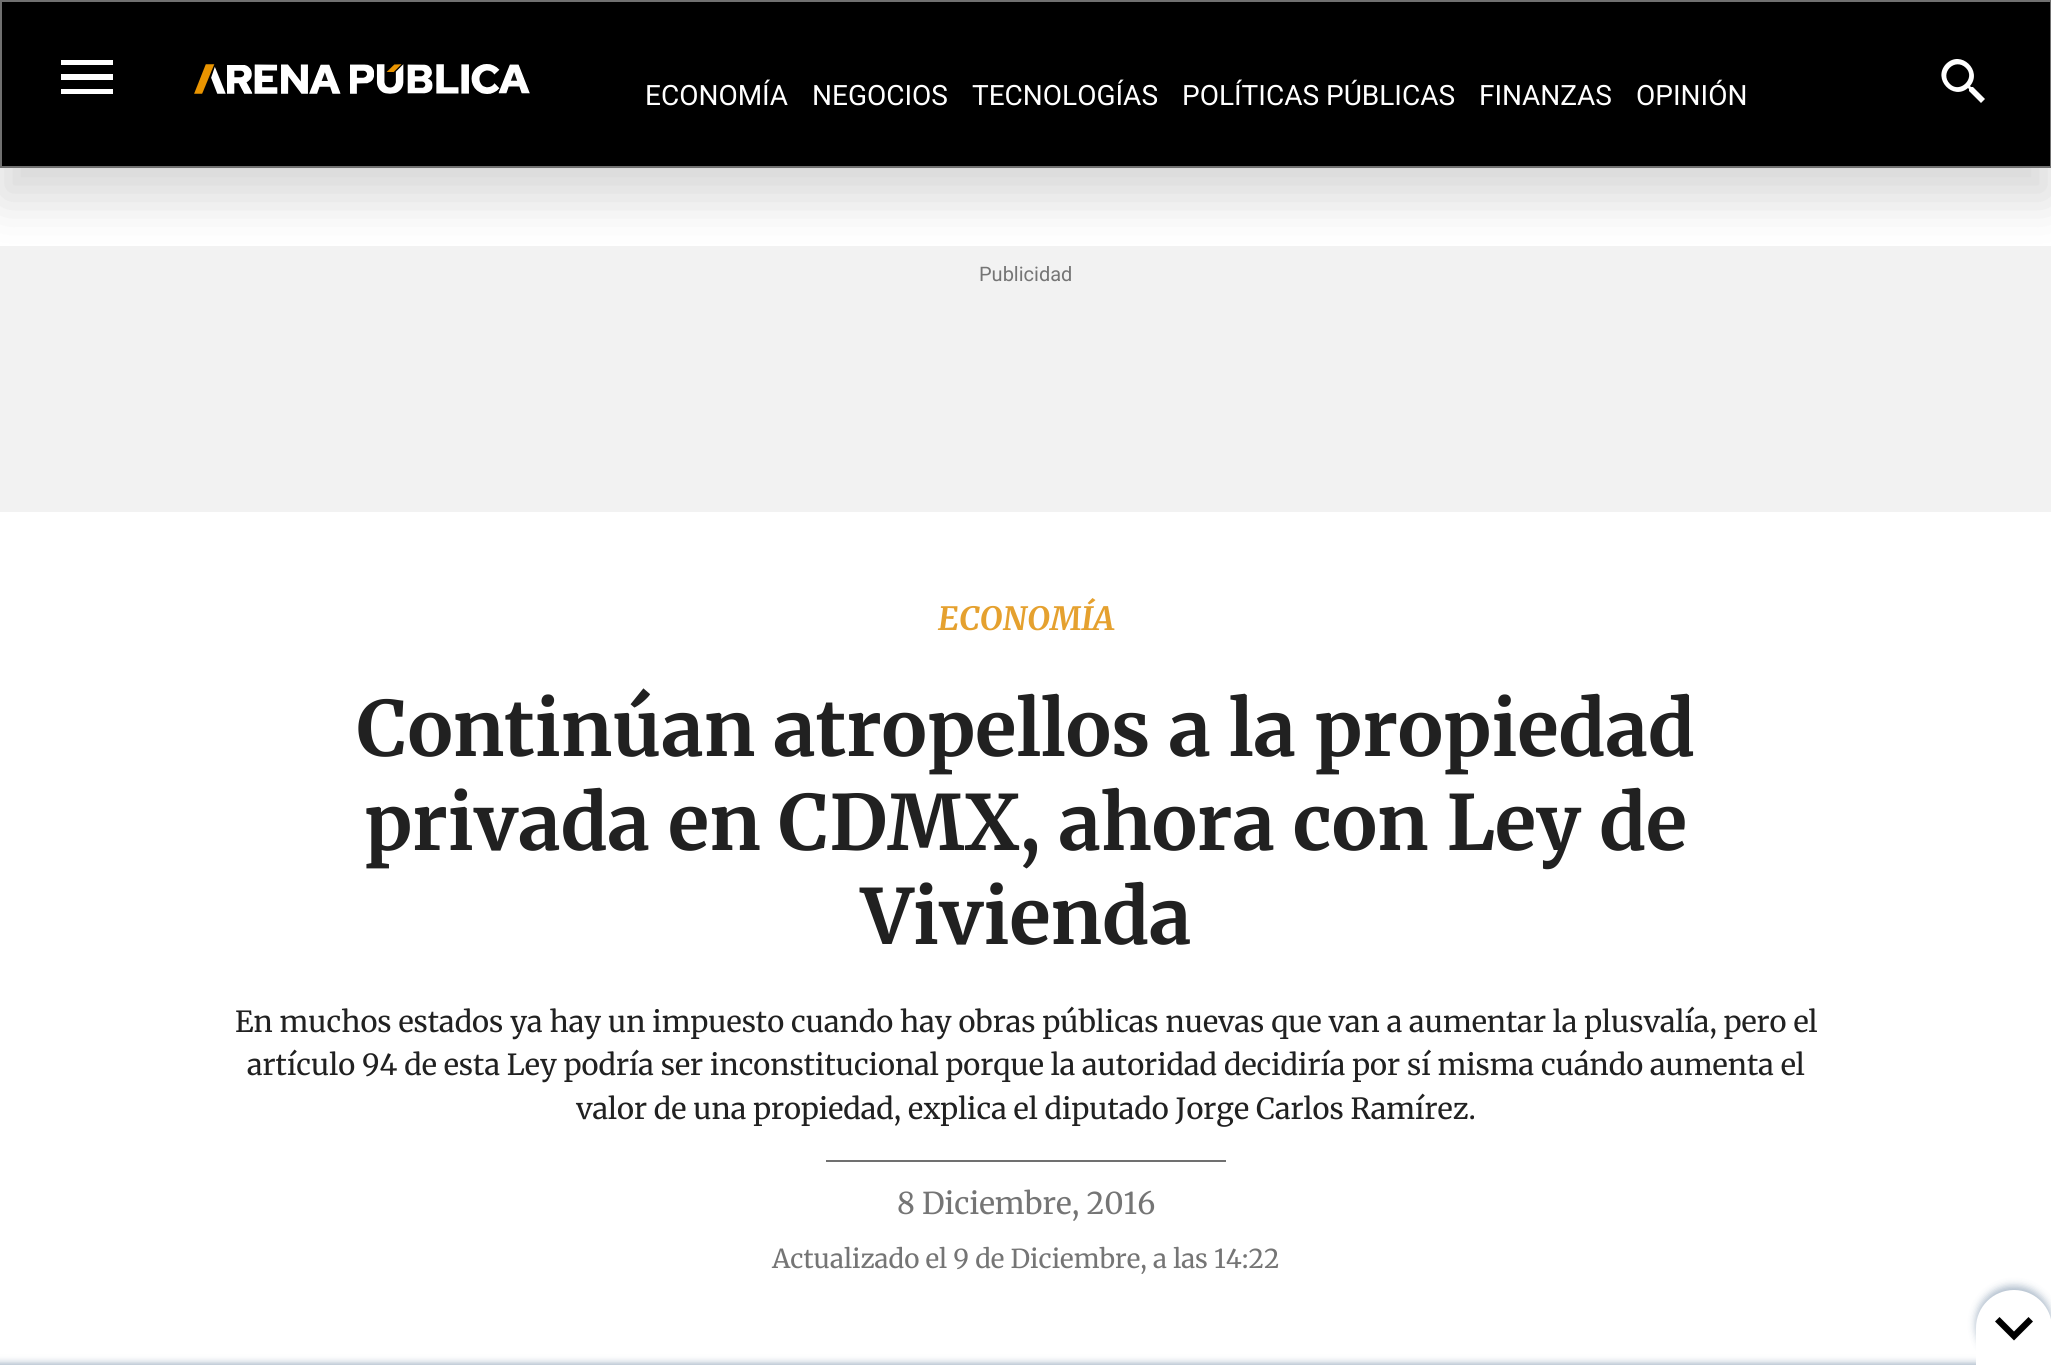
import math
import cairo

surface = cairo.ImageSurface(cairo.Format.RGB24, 2051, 1365)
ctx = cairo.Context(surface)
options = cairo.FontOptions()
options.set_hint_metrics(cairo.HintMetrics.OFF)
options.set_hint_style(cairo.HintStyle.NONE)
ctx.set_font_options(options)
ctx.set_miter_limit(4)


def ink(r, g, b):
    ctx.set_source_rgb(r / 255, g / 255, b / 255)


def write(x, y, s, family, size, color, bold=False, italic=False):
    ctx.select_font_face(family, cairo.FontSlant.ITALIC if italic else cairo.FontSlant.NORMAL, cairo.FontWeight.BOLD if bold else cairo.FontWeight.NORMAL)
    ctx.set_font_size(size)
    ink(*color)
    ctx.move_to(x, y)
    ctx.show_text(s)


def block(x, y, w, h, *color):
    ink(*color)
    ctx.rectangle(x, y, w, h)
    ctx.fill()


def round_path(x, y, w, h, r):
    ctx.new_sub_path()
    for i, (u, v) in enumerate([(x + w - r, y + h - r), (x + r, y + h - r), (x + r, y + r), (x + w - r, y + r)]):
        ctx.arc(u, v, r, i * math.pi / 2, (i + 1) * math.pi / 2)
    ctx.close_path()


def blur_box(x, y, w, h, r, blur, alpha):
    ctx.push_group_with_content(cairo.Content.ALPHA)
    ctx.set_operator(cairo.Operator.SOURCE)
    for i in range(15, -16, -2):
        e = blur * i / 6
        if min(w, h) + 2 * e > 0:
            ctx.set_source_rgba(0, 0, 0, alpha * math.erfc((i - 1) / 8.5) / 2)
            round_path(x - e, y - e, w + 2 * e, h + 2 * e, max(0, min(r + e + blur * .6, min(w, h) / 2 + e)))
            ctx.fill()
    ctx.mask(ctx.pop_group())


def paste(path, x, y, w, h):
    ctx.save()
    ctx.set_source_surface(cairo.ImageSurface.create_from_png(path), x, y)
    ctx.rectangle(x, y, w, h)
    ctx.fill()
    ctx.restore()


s1 = dict(family="Roboto", size=28, color=(255, 255, 255))
s2 = dict(family="Roboto", size=20, color=(117, 117, 117))
s3 = dict(family="Merriweather", size=32, color=(229, 161, 47), bold=True, italic=True)
s4 = dict(family="Merriweather", size=76, color=(33, 33, 33), bold=True)
s5 = dict(family="Merriweather", size=29, color=(33, 33, 33))
s6 = dict(family="Merriweather", size=30, color=(117, 117, 117))
s7 = dict(family="Merriweather", size=26, color=(117, 117, 117))

ink(255, 255, 255)
ctx.paint()
block(0, 246, 2051, 266, 242, 242, 242)
ink(0, 0, 0)
blur_box(0, 30, 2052, 168, 0, 25, 0.16)
ink(0, 0, 0)
ctx.rectangle(1, 1, 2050, 166)
ctx.fill_preserve()
ink(112, 112, 112)
ctx.stroke()
ink(255, 255, 255)
ctx.new_path()
ctx.move_to(61, 60)
ctx.line_to(113, 60)
ctx.line_to(113, 65)
ctx.line_to(61, 65)
ctx.close_path()
ctx.move_to(61, 80)
ctx.line_to(61, 74)
ctx.line_to(113, 74)
ctx.line_to(113, 80)
ctx.close_path()
ctx.move_to(61, 94)
ctx.line_to(61, 89)
ctx.line_to(113, 89)
ctx.line_to(113, 94)
ctx.close_path()
ctx.fill()
paste("pic1.png", 194, 64, 336, 30)
write(645, 105, "ECONOMÍA", **s1)
write(812, 105, "NEGOCIOS", **s1)
write(972, 105, "TECNOLOGÍAS", **s1)
write(1182, 105, "POLÍTICAS PÚBLICAS", **s1)
write(1479, 105, "FINANZAS", **s1)
write(1636, 105, "OPINIÓN", **s1)
ctx.new_path()
ctx.move_to(1950, 84)
ctx.curve_to(1960, 94, 1976, 78, 1966, 68)
ctx.curve_to(1955, 57, 1939, 73, 1950, 84)
ctx.close_path()
ctx.move_to(1973, 87)
ctx.line_to(1985, 99)
ctx.line_to(1981, 103)
ctx.line_to(1969, 91)
ctx.line_to(1969, 89)
ctx.line_to(1968, 88)
ctx.curve_to(1953, 101, 1932, 79, 1946, 64)
ctx.curve_to(1961, 49, 1983, 71, 1970, 86)
ctx.line_to(1971, 87)
ctx.close_path()
ctx.fill()
write(979, 281, "Publicidad", **s2)
write(938, 630, "ECONOMÍA", **s3)
write(357, 756, "Continúan atropellos a la propiedad", **s4)
write(364, 850, "privada en CDMX, ahora con Ley de", **s4)
write(861, 944, "Vivienda", **s4)
write(235, 1032, "En muchos estados ya hay un impuesto cuando hay obras públicas nuevas que van a aumentar la plusvalía, pero el", **s5)
write(247, 1075, "artículo 94 de esta Ley podría ser inconstitucional porque la autoridad decidiría por sí misma cuándo aumenta el", **s5)
write(576, 1119, "valor de una propiedad, explica el diputado Jorge Carlos Ramírez.", **s5)
block(826, 1160, 400, 2, 112, 112, 112)
write(897, 1214, "8 Diciembre, 2016", **s6)
write(772, 1268, "Actualizado el 9 de Diciembre, a las 14:22", **s7)
ink(17, 58, 102)
blur_box(-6, 1364, 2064, 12, 0, 4, 0.45)
blur_box(1976, 1286, 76, 76, 38, 4, 0.35)
ink(255, 255, 255)
ctx.new_path()
ctx.move_to(2014, 1290)
ctx.curve_to(2035, 1290, 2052, 1307, 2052, 1328)
ctx.line_to(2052, 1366)
ctx.line_to(1976, 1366)
ctx.line_to(1976, 1328)
ctx.curve_to(1976, 1307, 1993, 1290, 2014, 1290)
ctx.close_path()
ctx.fill()
ink(0, 0, 0)
ctx.new_path()
ctx.move_to(2028.5, 1317)
ctx.line_to(2014, 1331.5)
ctx.line_to(1999.5, 1317)
ctx.line_to(1995, 1321.5)
ctx.line_to(2014, 1340.5)
ctx.line_to(2033, 1321.5)
ctx.close_path()
ctx.fill()
surface.write_to_png("screenshot.png")
